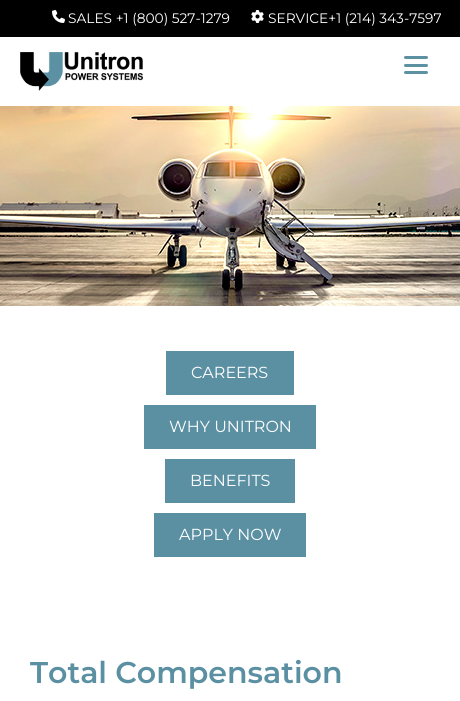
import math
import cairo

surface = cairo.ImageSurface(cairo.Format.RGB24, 460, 701)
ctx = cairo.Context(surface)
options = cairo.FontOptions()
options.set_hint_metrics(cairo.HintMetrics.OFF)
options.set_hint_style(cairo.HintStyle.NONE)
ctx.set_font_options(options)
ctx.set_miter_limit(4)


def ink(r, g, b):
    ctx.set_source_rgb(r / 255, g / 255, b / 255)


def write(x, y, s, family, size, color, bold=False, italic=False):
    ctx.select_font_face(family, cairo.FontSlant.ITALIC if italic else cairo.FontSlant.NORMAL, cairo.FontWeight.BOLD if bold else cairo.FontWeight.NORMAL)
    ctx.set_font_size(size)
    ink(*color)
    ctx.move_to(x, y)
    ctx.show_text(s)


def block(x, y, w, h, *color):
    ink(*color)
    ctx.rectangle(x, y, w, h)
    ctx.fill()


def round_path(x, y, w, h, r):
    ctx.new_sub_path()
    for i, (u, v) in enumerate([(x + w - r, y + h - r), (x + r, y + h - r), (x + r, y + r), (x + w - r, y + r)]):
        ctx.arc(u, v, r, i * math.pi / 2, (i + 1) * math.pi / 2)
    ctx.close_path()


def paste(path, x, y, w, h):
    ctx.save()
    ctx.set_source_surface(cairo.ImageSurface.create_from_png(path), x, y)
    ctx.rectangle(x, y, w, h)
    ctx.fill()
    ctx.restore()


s1 = dict(family="Montserrat", size=13.75, color=(255, 255, 255))
s2 = dict(family="Montserrat", size=16, color=(255, 255, 255))
s3 = dict(family="Montserrat SemiBold", size=30, color=(91, 144, 163))

ink(255, 255, 255)
ctx.paint()
block(0, 0, 460, 37, 0, 0, 0)
paste("pic1.png", 52, 10, 13, 13)
write(68, 23, "SALES +1 (800) 527-1279", **s1)
paste("pic2.png", 251, 10, 13, 13)
write(268, 23, "SERVICE+1 (214) 343-7597", **s1)
paste("pic3.png", 20, 52, 123, 39)
ink(92, 145, 164)
round_path(404, 56, 24, 3, 1.5)
ctx.fill()
round_path(404, 64, 24, 3, 1.5)
ctx.fill()
round_path(404, 71, 24, 3, 1.5)
ctx.fill()
paste("pic4.png", 0, 106, 460, 200)
block(166, 351, 128, 44, 91, 144, 163)
write(191, 378, "CAREERS", **s2)
block(144, 405, 172, 44, 91, 144, 163)
write(169, 432, "WHY UNITRON", **s2)
block(165, 459, 130, 44, 91, 144, 163)
write(190, 486, "BENEFITS", **s2)
block(154, 513, 152, 44, 91, 144, 163)
write(179, 540, "APPLY NOW", **s2)
write(30, 683, "Total Compensation", **s3)
surface.write_to_png("screenshot.png")
